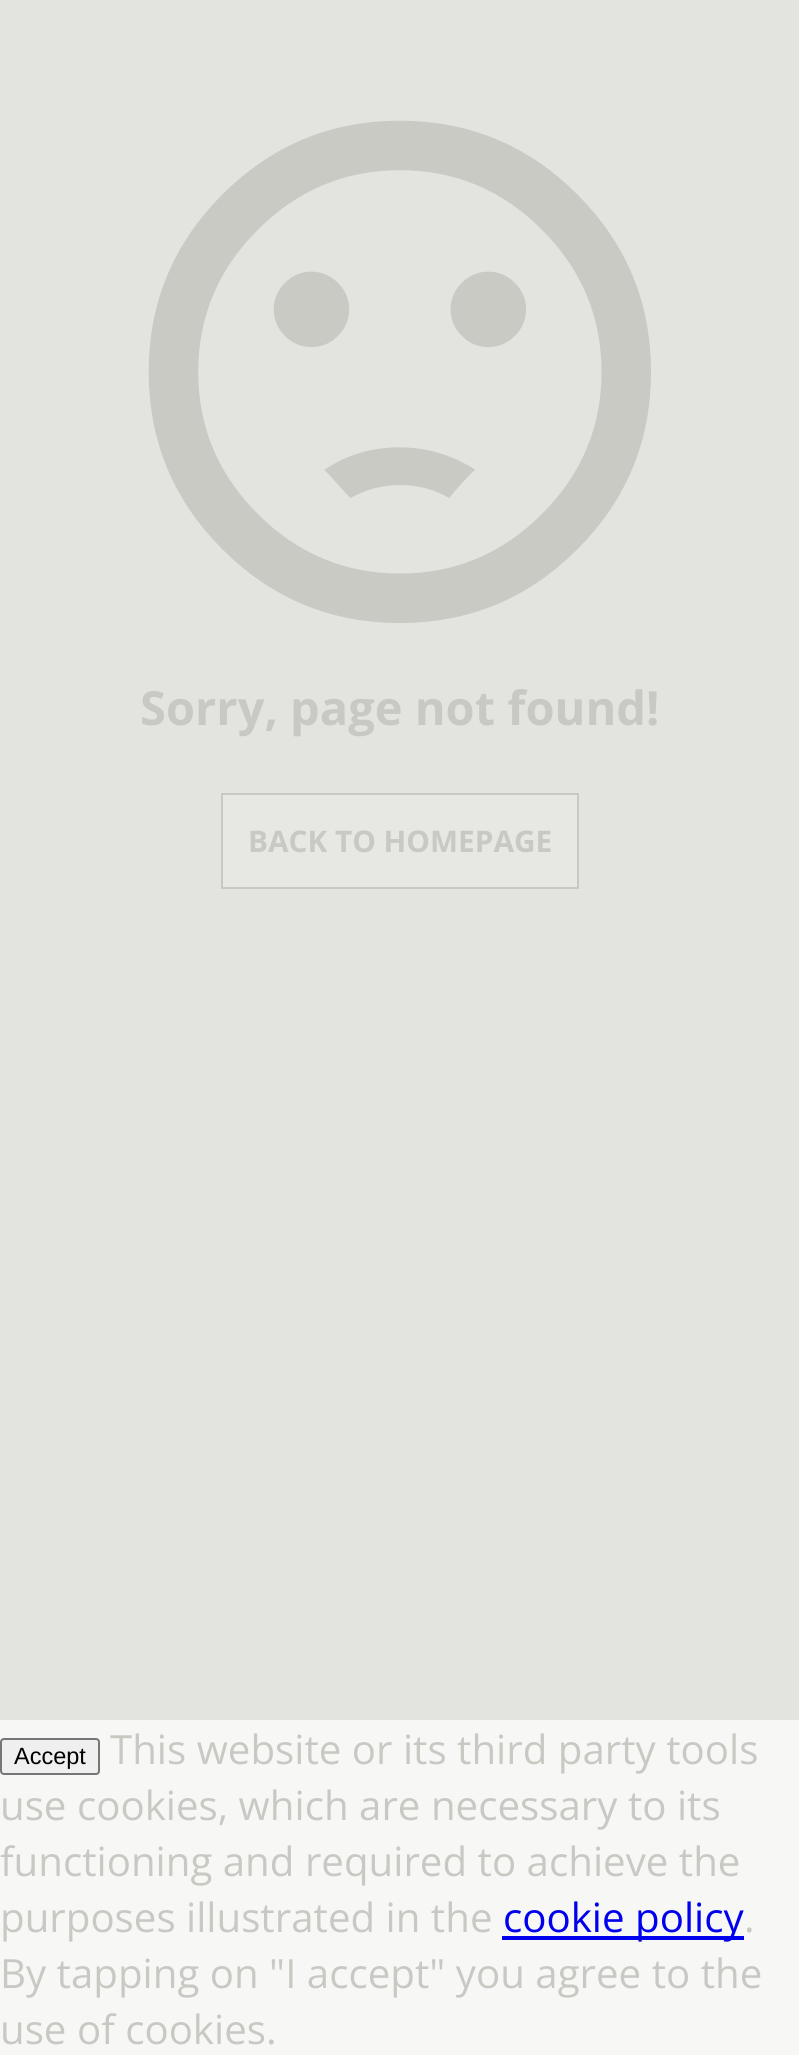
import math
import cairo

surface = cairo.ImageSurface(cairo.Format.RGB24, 799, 2055)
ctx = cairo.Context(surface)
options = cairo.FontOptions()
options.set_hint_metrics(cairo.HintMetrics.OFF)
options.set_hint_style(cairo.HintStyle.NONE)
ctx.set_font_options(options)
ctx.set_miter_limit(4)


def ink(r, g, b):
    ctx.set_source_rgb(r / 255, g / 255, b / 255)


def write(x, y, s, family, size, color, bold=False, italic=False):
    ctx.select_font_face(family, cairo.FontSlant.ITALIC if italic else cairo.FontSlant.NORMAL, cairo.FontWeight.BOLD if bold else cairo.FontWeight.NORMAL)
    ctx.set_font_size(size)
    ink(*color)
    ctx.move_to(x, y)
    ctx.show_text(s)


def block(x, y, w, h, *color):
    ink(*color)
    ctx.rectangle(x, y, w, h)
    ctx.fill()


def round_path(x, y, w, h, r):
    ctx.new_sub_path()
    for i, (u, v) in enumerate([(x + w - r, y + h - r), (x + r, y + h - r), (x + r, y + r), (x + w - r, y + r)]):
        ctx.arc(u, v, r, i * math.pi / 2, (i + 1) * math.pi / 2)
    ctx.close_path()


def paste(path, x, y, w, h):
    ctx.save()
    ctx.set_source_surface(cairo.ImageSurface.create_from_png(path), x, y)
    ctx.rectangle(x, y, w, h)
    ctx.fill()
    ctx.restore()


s1 = dict(family="Open Sans", size=47, color=(201, 201, 196), bold=True)
s2 = dict(family="Open Sans", size=29.75, color=(201, 201, 196), bold=True)
s3 = dict(family="Liberation Sans", size=23.5, color=(0, 0, 0))
s4 = dict(family="Open Sans", size=40.25, color=(201, 201, 196))
s5 = dict(family="Open Sans", size=40.25, color=(0, 0, 238))

ink(227, 227, 223)
ctx.paint()
paste("pic1.png", 148, 120, 503, 503)
write(140, 725, "Sorry, page not found!", **s1)
ink(231, 231, 227)
ctx.rectangle(222, 794, 356, 94)
ctx.fill_preserve()
ink(201, 201, 196)
ctx.stroke()
write(248, 852, "BACK TO HOMEPAGE", **s2)
block(0, 1720, 799, 335, 247, 247, 246)
ink(239, 239, 239)
round_path(1, 1739, 98, 35, 3)
ctx.fill_preserve()
ink(118, 118, 118)
ctx.stroke()
write(14, 1764, "Accept", **s3)
write(110, 1764, "This website or its third party tools", **s4)
write(0, 1820, "use cookies, which are necessary to its", **s4)
write(0, 1876, "functioning and required to achieve the", **s4)
write(0, 1932, "purposes illustrated in the", **s4)
block(502, 1936, 242, 4, 0, 0, 238)
write(503, 1932, "cookie policy", **s5)
write(744, 1932, ".", **s4)
write(0, 1988, "By tapping on \"I accept\" you agree to the", **s4)
write(0, 2044, "use of cookies.", **s4)
surface.write_to_png("screenshot.png")
